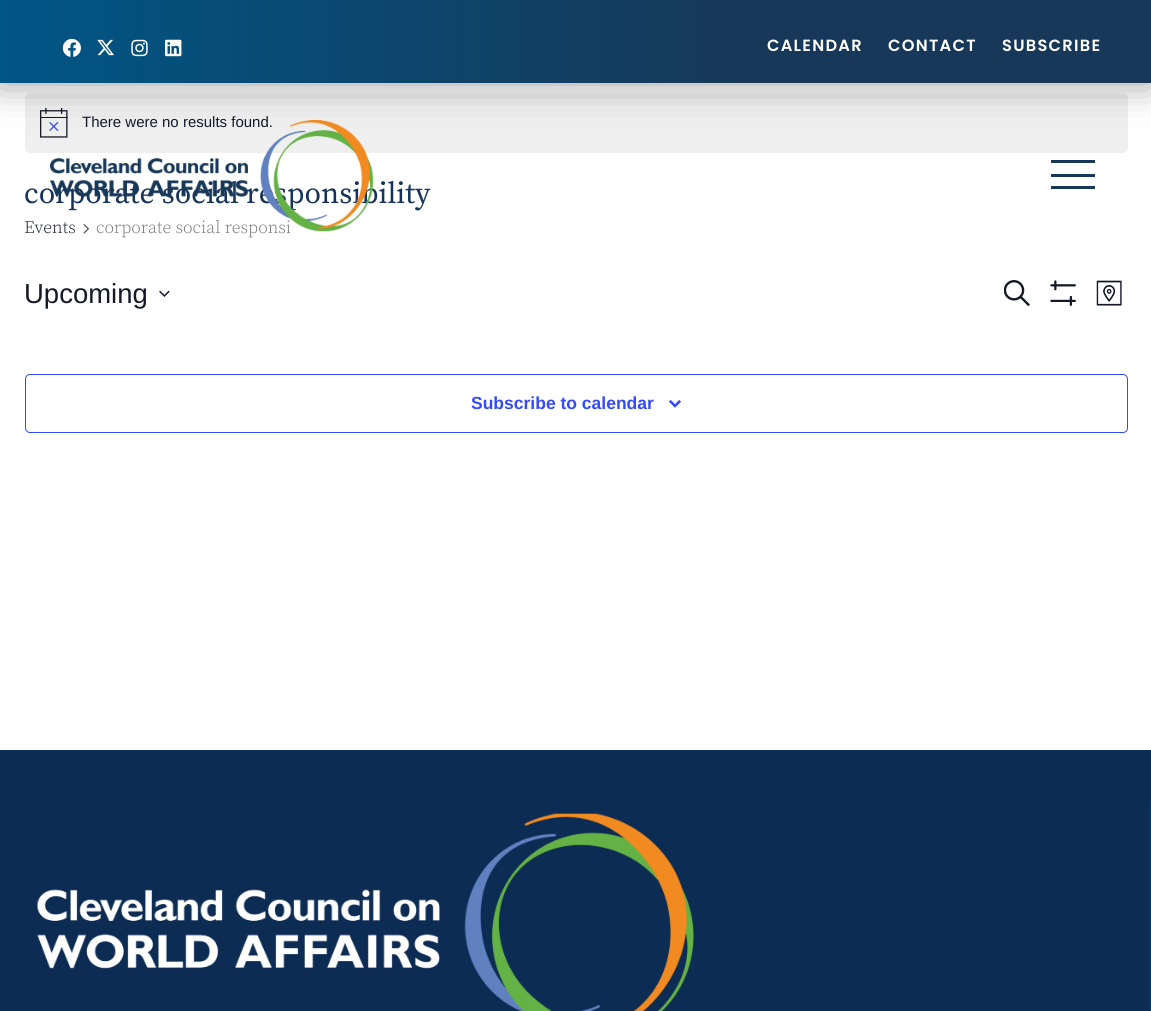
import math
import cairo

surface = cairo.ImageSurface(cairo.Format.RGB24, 1151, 1011)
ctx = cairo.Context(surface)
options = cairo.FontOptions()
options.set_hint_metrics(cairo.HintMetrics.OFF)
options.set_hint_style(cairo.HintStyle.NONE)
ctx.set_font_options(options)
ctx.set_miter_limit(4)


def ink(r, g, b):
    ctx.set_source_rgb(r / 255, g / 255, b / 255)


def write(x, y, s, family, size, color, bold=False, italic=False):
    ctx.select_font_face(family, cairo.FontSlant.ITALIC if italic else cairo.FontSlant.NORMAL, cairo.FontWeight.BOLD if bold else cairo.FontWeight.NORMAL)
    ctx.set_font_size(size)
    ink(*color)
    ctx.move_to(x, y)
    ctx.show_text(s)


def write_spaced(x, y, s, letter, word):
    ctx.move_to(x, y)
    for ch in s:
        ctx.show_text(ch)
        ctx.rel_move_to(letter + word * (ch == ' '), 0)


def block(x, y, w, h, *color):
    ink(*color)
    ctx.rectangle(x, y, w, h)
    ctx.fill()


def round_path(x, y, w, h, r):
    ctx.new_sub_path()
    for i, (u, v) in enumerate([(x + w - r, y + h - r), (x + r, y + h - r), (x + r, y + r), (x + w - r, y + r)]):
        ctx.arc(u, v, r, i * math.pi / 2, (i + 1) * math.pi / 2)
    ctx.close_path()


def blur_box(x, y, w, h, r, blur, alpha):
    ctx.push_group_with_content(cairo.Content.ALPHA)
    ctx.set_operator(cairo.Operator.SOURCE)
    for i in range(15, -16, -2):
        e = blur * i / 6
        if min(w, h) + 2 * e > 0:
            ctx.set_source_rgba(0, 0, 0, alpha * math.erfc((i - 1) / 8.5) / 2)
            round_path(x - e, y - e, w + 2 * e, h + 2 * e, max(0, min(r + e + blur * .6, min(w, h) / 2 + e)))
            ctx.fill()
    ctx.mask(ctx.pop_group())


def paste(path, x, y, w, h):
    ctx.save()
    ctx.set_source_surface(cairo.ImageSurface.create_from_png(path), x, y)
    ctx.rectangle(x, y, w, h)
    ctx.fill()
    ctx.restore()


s1 = dict(family="Liberation Sans", size=15, color=(20, 24, 39))
s2 = dict(family="Source Serif Pro", size=30, color=(22, 52, 91))
s3 = dict(family="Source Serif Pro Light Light", size=17.5, color=(20, 24, 39))
s4 = dict(family="Source Serif Pro Light Light", size=17.5, color=(117, 117, 117))
s5 = dict(family="Liberation Sans", size=27.5, color=(20, 24, 39))
s6 = dict(family="Liberation Sans", size=17.5, color=(51, 74, 255), bold=True)

ink(255, 255, 255)
ctx.paint()
ink(239, 239, 240)
round_path(25, 93, 1103, 60, 5)
ctx.fill()
paste("pic6.png", 40, 108, 28, 30)
ink(0, 0, 0)
blur_box(0, 0, 1151, 83, 0, 19, 0.41)
gradient = cairo.LinearGradient(0, 41, 1151, 41)
gradient.add_color_stop_rgba(0, 0, 0.337, 0.525, 1)
gradient.add_color_stop_rgba(0.64, 0.09, 0.22, 0.345, 1)
ctx.set_source(gradient)
ctx.rectangle(0, 0, 1151, 83)
ctx.fill()
paste("pic1.png", 62, 38, 19, 19)
paste("pic2.png", 97, 39, 17, 17)
paste("pic3.png", 131, 39, 17, 18)
paste("pic4.png", 165, 39, 17, 18)
ctx.select_font_face("Poppins SemiBold")
ctx.set_font_size(16.25)
ink(255, 255, 255)
write_spaced(767, 51, "CALENDAR", 1.25, 0)
write_spaced(888, 51, "CONTACT", 1.25, 0)
write_spaced(1002, 51, "SUBSCRIBE", 1.25, 0)
write(82, 127, "There were no results found.", **s1)
write(24, 203, "corporate social responsibility", **s2)
write(24, 233, "Events", **s3)
paste("pic7.png", 83, 224, 7, 10)
write(96, 233, "corporate social responsi", **s4)
paste("pic5.png", 50, 120, 324, 112)
block(1051, 174, 44, 3, 23, 56, 88)
block(1051, 160, 44, 3, 23, 56, 88)
block(1051, 186, 44, 3, 23, 56, 88)
write(24, 303, "Upcoming", **s5)
paste("pic8.png", 159, 290, 11, 7)
paste("pic9.png", 1004, 280, 26, 26)
paste("pic10.png", 1050, 280, 26, 26)
paste("pic11.png", 1096, 280, 26, 26)
round_path(25.5, 374.5, 1102, 58, 4.5)
ink(51, 74, 255)
ctx.set_line_width(1)
ctx.stroke()
write(471, 409, "Subscribe to calendar", **s6)
paste("pic12.png", 669, 400, 12, 8)
block(0, 750, 1151, 261, 13, 44, 84)
block(1149, 801, 2, 210, 0, 58, 99)
paste("pic13.png", 37, 813, 657, 198)
surface.write_to_png("screenshot.png")
